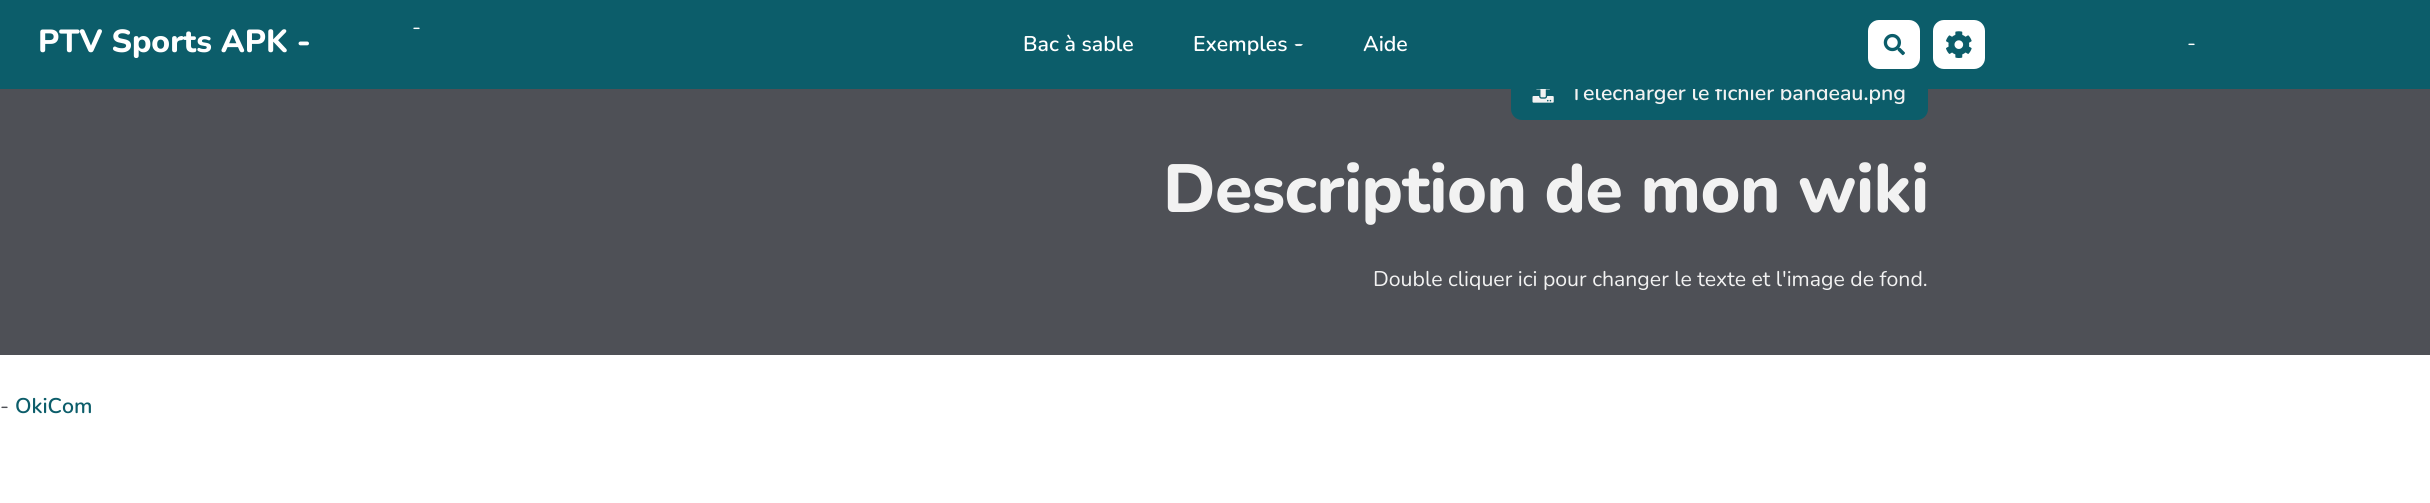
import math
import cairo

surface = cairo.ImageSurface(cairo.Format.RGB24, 2430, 503)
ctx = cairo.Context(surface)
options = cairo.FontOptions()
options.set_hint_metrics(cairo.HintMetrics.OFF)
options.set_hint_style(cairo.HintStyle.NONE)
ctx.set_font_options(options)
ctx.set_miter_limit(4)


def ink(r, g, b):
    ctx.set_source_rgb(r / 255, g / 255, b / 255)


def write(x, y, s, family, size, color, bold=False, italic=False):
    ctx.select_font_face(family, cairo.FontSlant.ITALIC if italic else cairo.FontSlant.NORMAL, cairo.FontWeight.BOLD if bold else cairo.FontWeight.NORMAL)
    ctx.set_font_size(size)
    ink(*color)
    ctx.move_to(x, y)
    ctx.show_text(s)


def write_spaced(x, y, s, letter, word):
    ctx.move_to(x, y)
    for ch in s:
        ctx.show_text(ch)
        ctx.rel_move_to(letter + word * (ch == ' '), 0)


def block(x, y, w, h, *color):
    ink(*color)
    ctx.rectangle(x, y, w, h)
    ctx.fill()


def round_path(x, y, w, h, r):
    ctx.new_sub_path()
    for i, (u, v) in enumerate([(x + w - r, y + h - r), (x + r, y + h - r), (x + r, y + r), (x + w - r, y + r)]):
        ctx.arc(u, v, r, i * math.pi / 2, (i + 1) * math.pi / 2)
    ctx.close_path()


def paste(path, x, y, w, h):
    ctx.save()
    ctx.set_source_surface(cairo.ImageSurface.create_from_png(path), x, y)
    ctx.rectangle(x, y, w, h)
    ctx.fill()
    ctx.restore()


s1 = dict(family="Nunito SemiBold", size=21.25, color=(242, 242, 242))
s2 = dict(family="Nunito", size=21.25, color=(255, 255, 255))
s3 = dict(family="Nunito ExtraBold", size=31.9, color=(255, 255, 255))
s4 = dict(family="Nunito SemiBold", size=21.25, color=(255, 255, 255))
s5 = dict(family="Nunito", size=21.25, color=(242, 242, 242))
s6 = dict(family="Nunito", size=21.25, color=(78, 80, 86))
s7 = dict(family="Nunito SemiBold", size=21.25, color=(12, 93, 106))

ink(255, 255, 255)
ctx.paint()
block(0, 89, 2430, 266, 78, 80, 86)
ink(12, 93, 106)
round_path(1511, 68, 417, 52, 11)
ctx.fill()
write(1570, 100, "Télécharger le fichier bandeau.png", **s1)
block(0, 0, 2430, 89, 12, 93, 106)
write(412, 34, "-", **s2)
write(38, 52, "PTV Sports APK -", **s3)
write(1023, 51, "Bac à sable", **s4)
write(1193, 51, "Exemples", **s4)
ink(231, 239, 240)
ctx.new_path()
ctx.move_to(1296, 44)
ctx.curve_to(1298, 44, 1301.5, 43.5, 1303, 44.5)
ctx.line_to(1301, 46)
ctx.line_to(1296, 46)
ctx.line_to(1294.5, 44.5)
ctx.close_path()
ctx.fill()
write(1363, 51, "Aide", **s4)
round_path(1868, 20, 52, 49, 11)
ctx.fill()
paste("pic1.png", 1883, 33, 22, 23)
round_path(1933, 20, 52, 49, 11)
ctx.fill()
paste("pic2.png", 1946, 31, 26, 27)
write(2187, 50, "-", **s2)
paste("pic3.png", 1532, 89, 22, 14)
ctx.select_font_face("Nunito ExtraBold")
ctx.set_font_size(68)
ink(242, 242, 242)
write_spaced(1163, 212, "Description de mon wiki", -0.6, 0)
write(1373, 286, "Double cliquer ici pour changer le texte et l'image de fond.", **s5)
write(0, 413, "-", **s6)
write(15, 413, "OkiCom", **s7)
surface.write_to_png("screenshot.png")
